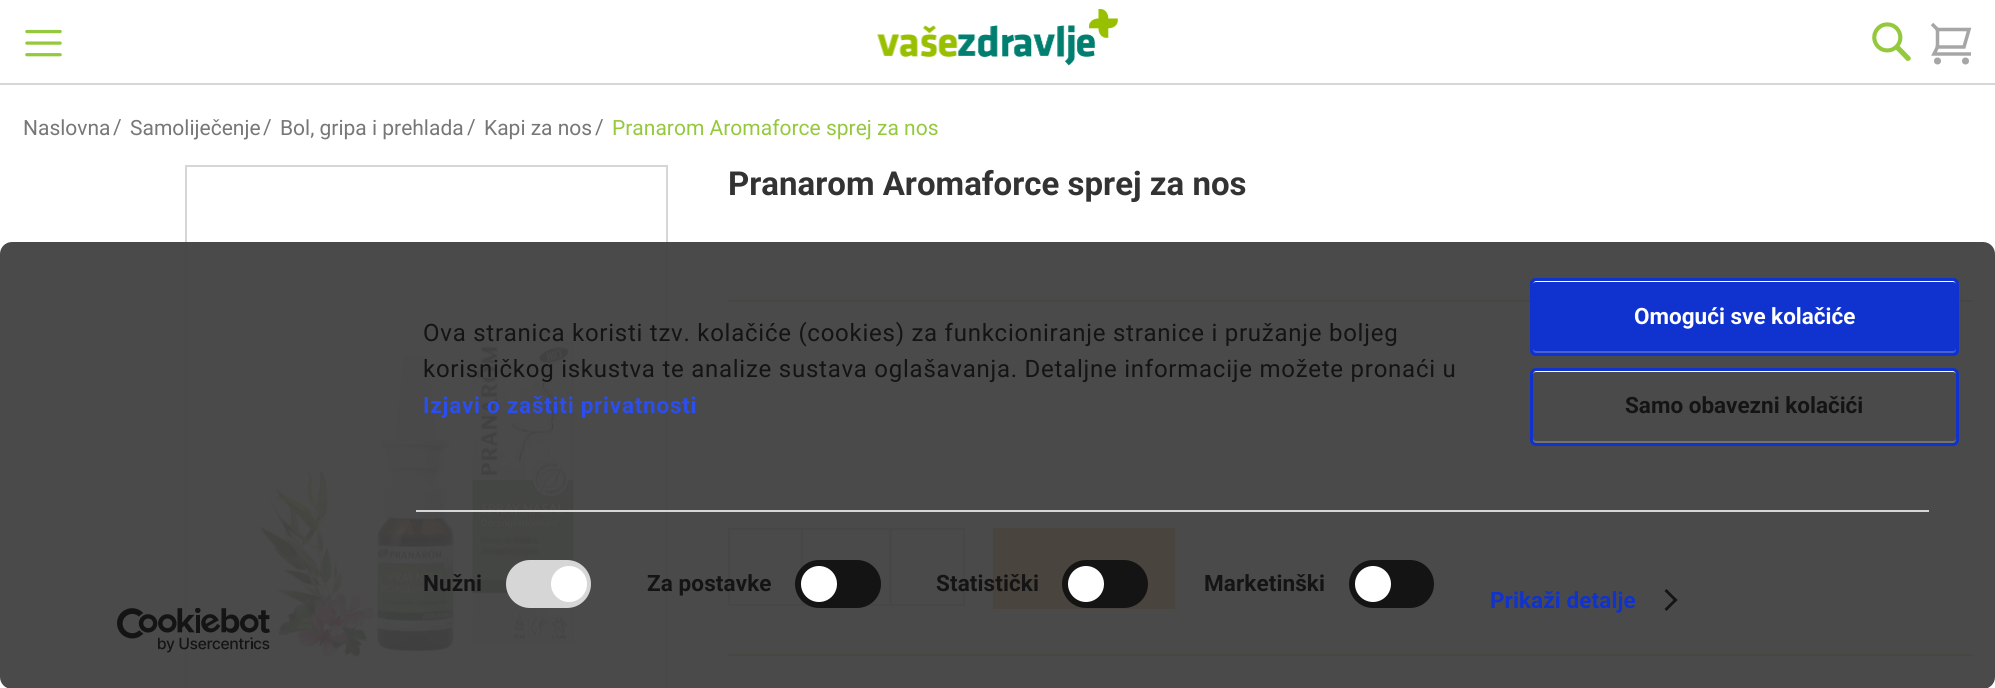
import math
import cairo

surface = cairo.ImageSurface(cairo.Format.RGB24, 1995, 688)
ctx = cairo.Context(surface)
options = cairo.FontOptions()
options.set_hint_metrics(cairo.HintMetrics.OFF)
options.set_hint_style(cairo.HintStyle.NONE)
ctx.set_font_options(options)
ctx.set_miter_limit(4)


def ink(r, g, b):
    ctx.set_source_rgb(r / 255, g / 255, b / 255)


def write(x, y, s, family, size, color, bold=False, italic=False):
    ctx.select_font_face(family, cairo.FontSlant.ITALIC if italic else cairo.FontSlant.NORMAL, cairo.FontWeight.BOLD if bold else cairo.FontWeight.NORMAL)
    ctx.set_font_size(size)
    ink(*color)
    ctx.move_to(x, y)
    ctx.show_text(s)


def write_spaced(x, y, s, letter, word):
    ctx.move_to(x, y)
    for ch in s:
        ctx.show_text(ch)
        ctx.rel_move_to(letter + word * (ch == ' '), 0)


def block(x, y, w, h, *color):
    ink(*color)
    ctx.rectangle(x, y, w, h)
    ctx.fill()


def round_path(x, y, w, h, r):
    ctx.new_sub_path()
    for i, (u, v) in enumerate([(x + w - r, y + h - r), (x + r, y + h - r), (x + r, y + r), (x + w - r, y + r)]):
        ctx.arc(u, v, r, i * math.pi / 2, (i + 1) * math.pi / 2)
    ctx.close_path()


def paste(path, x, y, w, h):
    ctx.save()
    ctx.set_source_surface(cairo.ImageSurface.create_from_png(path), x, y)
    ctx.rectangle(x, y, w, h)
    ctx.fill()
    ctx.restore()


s1 = dict(family="Roboto", size=21, color=(119, 119, 119))
s2 = dict(family="Roboto", size=21, color=(149, 201, 61))
s3 = dict(family="Roboto", size=33, color=(51, 51, 51), bold=True)
s4 = dict(family="Roboto", size=22.5, color=(255, 255, 255), bold=True)
s5 = dict(family="Roboto", size=22.5, color=(20, 20, 20), bold=True)

ink(255, 255, 255)
ctx.paint()
paste("pic1.png", 877, 9, 242, 57)
paste("pic2.png", 1872, 22, 39, 39)
block(0, 83, 1995, 2, 214, 214, 214)
paste("pic3.png", 25, 29, 37, 28)
ctx.new_path()
ctx.move_to(1937.5, 29.5)
ctx.line_to(1969, 29.5)
ctx.line_to(1964, 47)
ctx.line_to(1937.5, 47)
ink(166, 166, 166)
ctx.set_line_width(3.5)
ctx.set_line_cap(cairo.LineCap.SQUARE)
ctx.stroke()
ctx.arc(1965.5, 61, 3.5, 0, 2 * math.pi)
ctx.fill()
ctx.new_path()
ctx.move_to(1932, 24)
ctx.line_to(1937.5, 29.5)
ctx.line_to(1937.5, 47)
ctx.line_to(1934, 54)
ctx.line_to(1971, 54)
ctx.set_line_cap(cairo.LineCap.BUTT)
ctx.stroke()
ctx.arc(1937.5, 61, 3.5, 0, 2 * math.pi)
ctx.fill()
write(23, 135, "Naslovna", **s1)
write(113, 134, "/", **s1)
write(130, 135, "Samoliječenje", **s1)
write(263, 134, "/", **s1)
write(280, 135, "Bol, gripa i prehlada", **s1)
write(467, 134, "/", **s1)
write(484, 135, "Kapi za nos", **s1)
write(595, 134, "/", **s1)
write(612, 135, "Pranarom Aromaforce sprej za nos", **s2)
ctx.rectangle(186, 166, 481, 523)
ink(214, 214, 214)
ctx.set_line_width(2)
ctx.stroke()
paste("pic4.png", 186, 248, 395, 440)
write(728, 195, "Pranarom Aromaforce sprej za nos", **s3)
block(728, 300, 1245, 2, 149, 201, 61)
ctx.rectangle(729, 529, 73, 76)
ink(194, 194, 194)
ctx.stroke()
round_path(802, 529, 88, 76, 0.5)
ctx.stroke()
ctx.rectangle(891, 529, 73, 76)
ctx.stroke()
block(993, 528, 182, 81, 236, 157, 5)
block(728, 654, 1245, 2, 149, 201, 61)
ctx.set_source_rgba(0.259, 0.259, 0.259, 0.95)
round_path(0, 242, 1995, 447, 12)
ctx.fill()
ctx.select_font_face("Roboto")
ctx.set_font_size(24)
ink(20, 20, 20)
write_spaced(423, 341, "Ova stranica koristi tzv. kolačiće (cookies) za funkcioniranje stranice i pružanje boljeg", 0.75, 0)
write_spaced(423, 377, "korisničkog iskustva te analize sustava oglašavanja. Detaljne informacije možete pronaći u", 0.75, 0)
ctx.select_font_face("Roboto", cairo.FontSlant.NORMAL, cairo.FontWeight.BOLD)
ctx.set_font_size(22.5)
ink(42, 78, 239)
write_spaced(423, 413, "Izjavi o zaštiti privatnosti", 0.75, 0)
block(416, 510, 1513, 2, 214, 214, 214)
ink(20, 20, 20)
write_spaced(423, 591, "Nužni", 0.1, 0)
ink(214, 214, 214)
round_path(506, 560, 85, 48, 24)
ctx.fill()
ink(255, 255, 255)
ctx.arc(569, 584, 18, 0, 2 * math.pi)
ctx.fill()
ink(20, 20, 20)
write_spaced(647, 591, "Za postavke", 0.1, 0)
round_path(795, 560, 86, 48, 24)
ctx.fill()
ink(255, 255, 255)
ctx.arc(819, 584, 18, 0, 2 * math.pi)
ctx.fill()
ink(20, 20, 20)
write_spaced(936, 591, "Statistički", 0.1, 0)
round_path(1062, 560, 86, 48, 24)
ctx.fill()
ink(255, 255, 255)
ctx.arc(1086, 584, 18, 0, 2 * math.pi)
ctx.fill()
ink(20, 20, 20)
write_spaced(1204, 591, "Marketinški", 0.1, 0)
round_path(1349, 560, 85, 48, 24)
ctx.fill()
ink(255, 255, 255)
ctx.arc(1373, 584, 18, 0, 2 * math.pi)
ctx.fill()
ink(16, 50, 207)
write_spaced(1490, 608, "Prikaži detalje", 0.1, 0)
ink(20, 20, 20)
ctx.new_path()
ctx.move_to(1666.5, 589)
ctx.line_to(1677.5, 600)
ctx.line_to(1675.5, 602)
ctx.line_to(1664.5, 591)
ctx.close_path()
ctx.fill()
ctx.new_path()
ctx.move_to(1675.5, 598)
ctx.line_to(1677.5, 600)
ctx.line_to(1666.5, 611)
ctx.line_to(1664.5, 609)
ctx.close_path()
ctx.fill()
ink(16, 50, 207)
round_path(1530, 278, 429, 78, 6)
ctx.fill()
ink(72, 96, 206)
ctx.new_path()
ctx.move_to(1533, 348)
ctx.curve_to(1533, 350, 1534, 351, 1536, 351)
ctx.line_to(1953, 351)
ctx.curve_to(1955, 351, 1956, 350, 1956, 348)
ctx.line_to(1956, 350)
ctx.curve_to(1956, 352, 1955, 353, 1953, 353)
ctx.line_to(1536, 353)
ctx.curve_to(1534, 353, 1533, 352, 1533, 350)
ctx.close_path()
ctx.fill()
ink(255, 255, 255)
ctx.new_path()
ctx.move_to(1536, 282)
ctx.line_to(1953, 282)
ctx.curve_to(1955, 282, 1956, 283, 1956, 285)
ctx.curve_to(1956, 283, 1955, 281, 1953, 281)
ctx.line_to(1536, 281)
ctx.curve_to(1534, 281, 1533, 283, 1533, 285)
ctx.curve_to(1533, 283, 1534, 282, 1536, 282)
ctx.close_path()
ctx.fill()
round_path(1531.5, 279.5, 426, 75, 4.5)
ink(16, 50, 207)
ctx.set_line_width(3)
ctx.stroke()
write(1634, 324, "Omogući sve kolačiće", **s4)
ink(114, 114, 114)
ctx.new_path()
ctx.move_to(1533, 438)
ctx.curve_to(1533, 440, 1534, 441, 1536, 441)
ctx.line_to(1953, 441)
ctx.curve_to(1955, 441, 1956, 440, 1956, 438)
ctx.line_to(1956, 440)
ctx.curve_to(1956, 442, 1955, 443, 1953, 443)
ctx.line_to(1536, 443)
ctx.curve_to(1534, 443, 1533, 442, 1533, 440)
ctx.close_path()
ctx.fill()
ink(255, 255, 255)
ctx.new_path()
ctx.move_to(1536, 372)
ctx.line_to(1953, 372)
ctx.curve_to(1955, 372, 1956, 373, 1956, 375)
ctx.curve_to(1956, 373, 1955, 371, 1953, 371)
ctx.line_to(1536, 371)
ctx.curve_to(1534, 371, 1533, 373, 1533, 375)
ctx.curve_to(1533, 373, 1534, 372, 1536, 372)
ctx.close_path()
ctx.fill()
round_path(1531.5, 369.5, 426, 75, 4.5)
ink(16, 50, 207)
ctx.stroke()
write(1625, 413, "Samo obavezni kolačići", **s5)
paste("pic5.png", 117, 608, 153, 45)
surface.write_to_png("screenshot.png")
